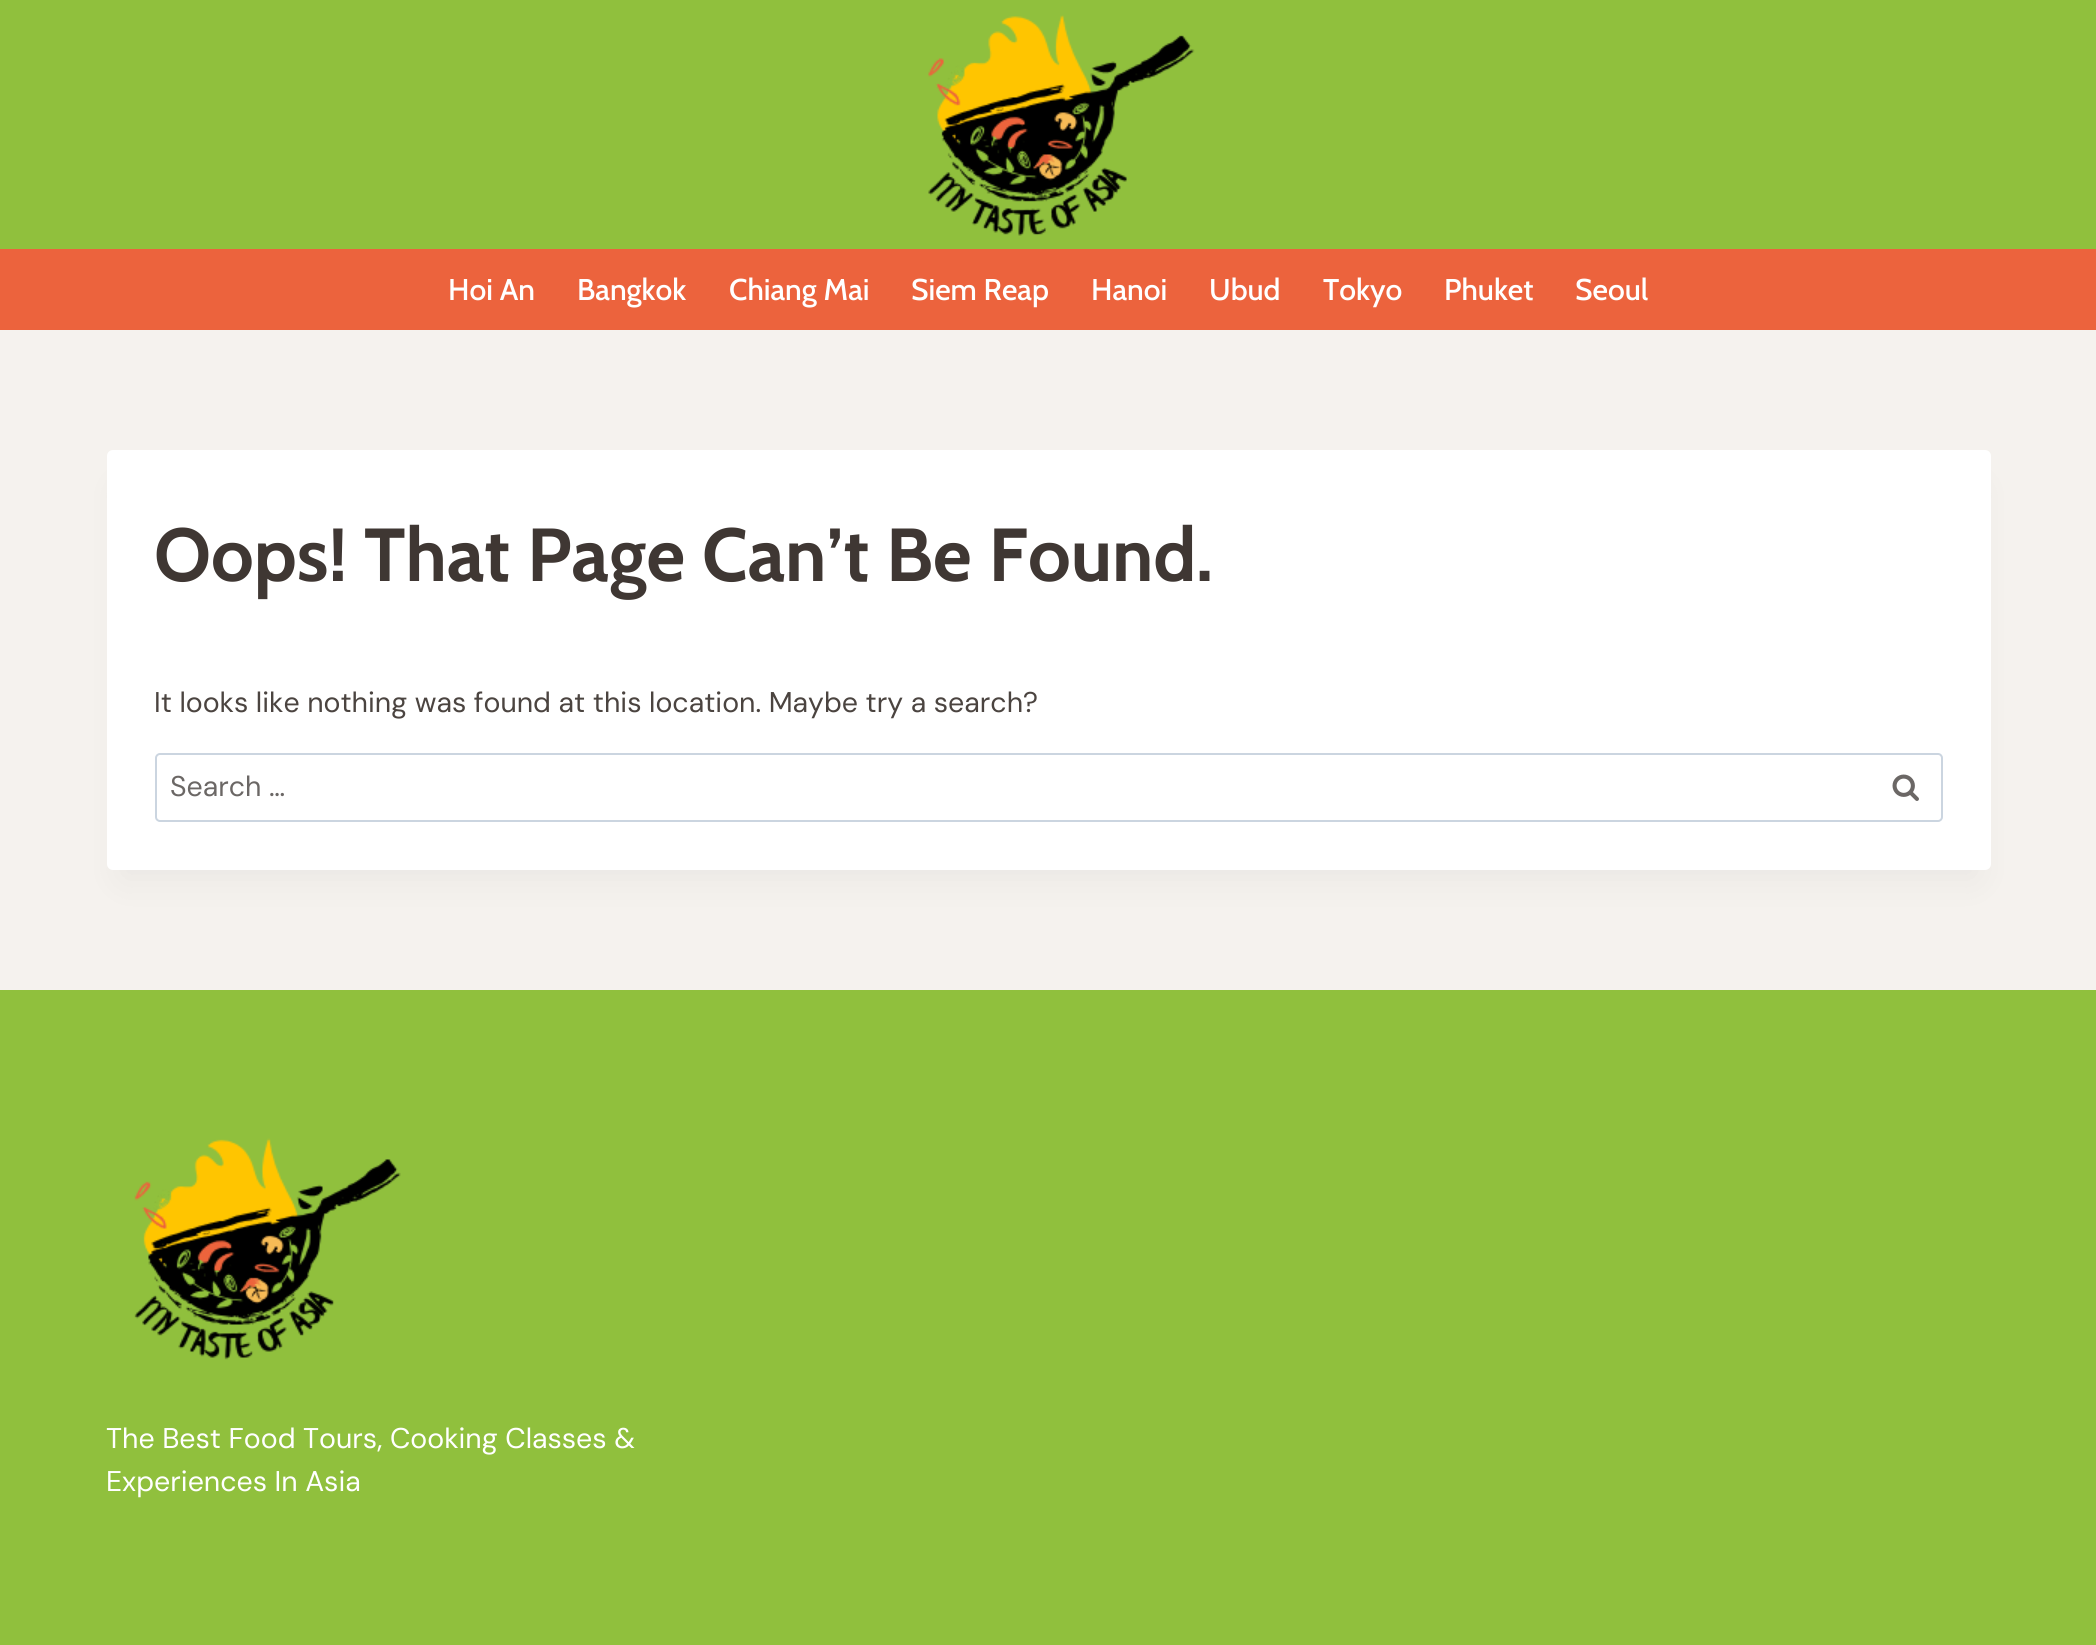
import math
import cairo

surface = cairo.ImageSurface(cairo.Format.RGB24, 2096, 1645)
ctx = cairo.Context(surface)
options = cairo.FontOptions()
options.set_hint_metrics(cairo.HintMetrics.OFF)
options.set_hint_style(cairo.HintStyle.NONE)
ctx.set_font_options(options)
ctx.set_miter_limit(4)


def ink(r, g, b):
    ctx.set_source_rgb(r / 255, g / 255, b / 255)


def write(x, y, s, family, size, color, bold=False, italic=False):
    ctx.select_font_face(family, cairo.FontSlant.ITALIC if italic else cairo.FontSlant.NORMAL, cairo.FontWeight.BOLD if bold else cairo.FontWeight.NORMAL)
    ctx.set_font_size(size)
    ink(*color)
    ctx.move_to(x, y)
    ctx.show_text(s)


def block(x, y, w, h, *color):
    ink(*color)
    ctx.rectangle(x, y, w, h)
    ctx.fill()


def round_path(x, y, w, h, r):
    ctx.new_sub_path()
    for i, (u, v) in enumerate([(x + w - r, y + h - r), (x + r, y + h - r), (x + r, y + r), (x + w - r, y + r)]):
        ctx.arc(u, v, r, i * math.pi / 2, (i + 1) * math.pi / 2)
    ctx.close_path()


def blur_box(x, y, w, h, r, blur, alpha):
    ctx.push_group_with_content(cairo.Content.ALPHA)
    ctx.set_operator(cairo.Operator.SOURCE)
    for i in range(15, -16, -2):
        e = blur * i / 6
        if min(w, h) + 2 * e > 0:
            ctx.set_source_rgba(0, 0, 0, alpha * math.erfc((i - 1) / 8.5) / 2)
            round_path(x - e, y - e, w + 2 * e, h + 2 * e, max(0, min(r + e + blur * .6, min(w, h) / 2 + e)))
            ctx.fill()
    ctx.mask(ctx.pop_group())


def paste(path, x, y, w, h):
    ctx.save()
    ctx.set_source_surface(cairo.ImageSurface.create_from_png(path), x, y)
    ctx.rectangle(x, y, w, h)
    ctx.fill()
    ctx.restore()


s1 = dict(family="Cabin Medium", size=30, color=(255, 255, 255))
s2 = dict(family="Cabin", size=75, color=(63, 55, 51), bold=True)
s3 = dict(family="DM Sans", size=28.5, color=(75, 68, 64))
s4 = dict(family="DM Sans", size=28.5, color=(107, 103, 101))
s5 = dict(family="DM Sans", size=28.5, color=(255, 255, 255))

ink(245, 242, 238)
ctx.paint()
block(0, 0, 2096, 249, 144, 192, 61)
paste("pic1.png", 928, 15, 267, 221)
block(0, 249, 2096, 81, 236, 99, 61)
write(448, 300, "Hoi An", **s1)
write(577, 300, "Bangkok", **s1)
write(729, 300, "Chiang Mai", **s1)
write(911, 300, "Siem Reap", **s1)
write(1091, 300, "Hanoi", **s1)
write(1209, 300, "Ubud", **s1)
write(1323, 300, "Tokyo", **s1)
write(1444, 300, "Phuket", **s1)
write(1575, 300, "Seoul", **s1)
ink(0, 0, 0)
blur_box(122, 488, 1854, 390, 0, 19, 0.05)
ink(255, 255, 255)
round_path(107, 450, 1884, 420, 6)
ctx.fill()
write(154, 581, "Oops! That Page Can’t Be Found.", **s2)
write(154, 712, "It looks like nothing was found at this location. Maybe try a search?", **s3)
round_path(156, 754, 1786, 67, 4)
ink(203, 213, 224)
ctx.stroke()
write(170, 796, "Search …", **s4)
paste("pic2.png", 1892, 774, 27, 27)
block(0, 990, 2096, 655, 144, 192, 61)
paste("pic3.png", 134, 1138, 267, 222)
write(106, 1448, "The Best Food Tours, Cooking Classes &", **s5)
write(106, 1491, "Experiences In Asia", **s5)
surface.write_to_png("screenshot.png")
